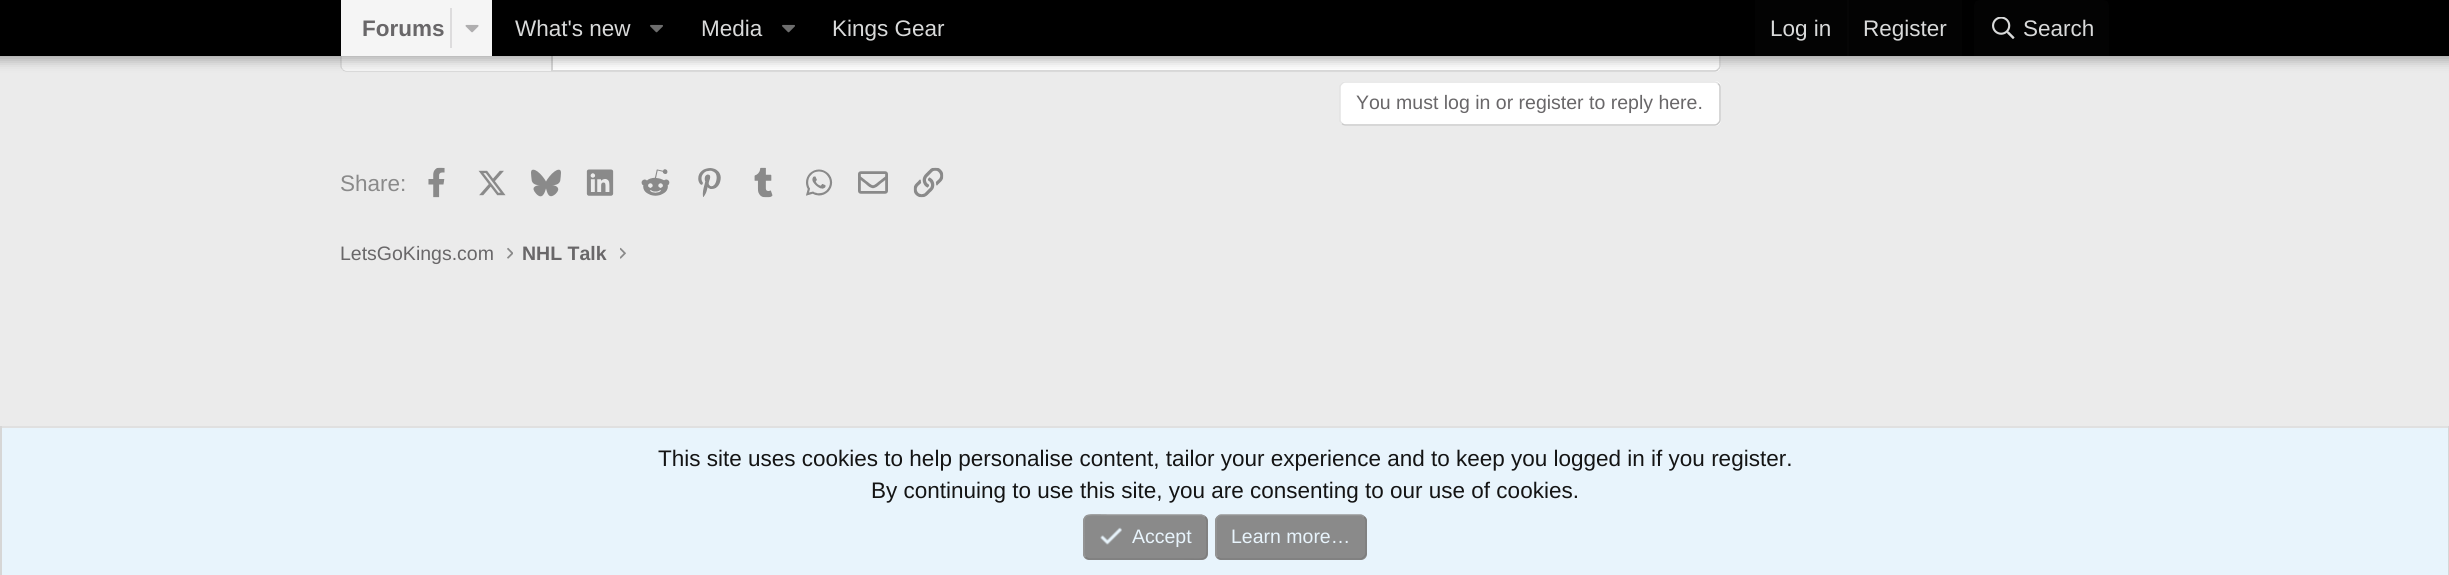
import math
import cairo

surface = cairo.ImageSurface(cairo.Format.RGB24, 2449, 575)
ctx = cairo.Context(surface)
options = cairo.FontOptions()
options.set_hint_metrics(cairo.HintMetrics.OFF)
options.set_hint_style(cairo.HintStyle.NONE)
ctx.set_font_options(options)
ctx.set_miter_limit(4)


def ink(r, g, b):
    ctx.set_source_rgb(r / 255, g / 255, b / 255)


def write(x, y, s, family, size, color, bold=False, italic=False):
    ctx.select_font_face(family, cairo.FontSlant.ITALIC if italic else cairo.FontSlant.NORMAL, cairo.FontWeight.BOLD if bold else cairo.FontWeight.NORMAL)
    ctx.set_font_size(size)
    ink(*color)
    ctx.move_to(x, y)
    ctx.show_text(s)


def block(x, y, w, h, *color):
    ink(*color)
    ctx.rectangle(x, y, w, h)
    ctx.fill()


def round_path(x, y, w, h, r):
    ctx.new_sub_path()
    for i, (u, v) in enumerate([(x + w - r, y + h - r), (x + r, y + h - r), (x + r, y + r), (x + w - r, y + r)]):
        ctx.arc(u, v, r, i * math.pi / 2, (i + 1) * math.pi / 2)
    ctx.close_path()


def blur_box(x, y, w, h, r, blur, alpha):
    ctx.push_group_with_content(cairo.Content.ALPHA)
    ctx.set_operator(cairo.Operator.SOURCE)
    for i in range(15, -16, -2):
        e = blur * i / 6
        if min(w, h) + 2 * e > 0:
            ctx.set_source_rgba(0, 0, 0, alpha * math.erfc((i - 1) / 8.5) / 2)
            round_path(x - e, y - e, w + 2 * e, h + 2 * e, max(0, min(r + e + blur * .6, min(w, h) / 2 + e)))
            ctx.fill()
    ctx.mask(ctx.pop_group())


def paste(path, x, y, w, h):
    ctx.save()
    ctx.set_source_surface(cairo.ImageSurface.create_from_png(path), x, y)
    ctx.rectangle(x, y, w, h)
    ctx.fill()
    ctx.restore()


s1 = dict(family="Liberation Sans", size=22.5, color=(105, 103, 105), bold=True)
s2 = dict(family="Liberation Sans", size=22.5, color=(217, 218, 218))
s3 = dict(family="Liberation Sans", size=19.5, color=(105, 103, 105))
s4 = dict(family="Liberation Sans", size=22.5, color=(138, 138, 138))
s5 = dict(family="Liberation Sans", size=19.5, color=(105, 103, 105), bold=True)
s6 = dict(family="Liberation Sans", size=22.5, color=(20, 20, 20))
s7 = dict(family="Liberation Sans", size=19.5, color=(232, 244, 252))

ink(235, 235, 235)
ctx.paint()
ink(255, 255, 255)
round_path(341, -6, 1380, 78, 6)
ctx.fill()
ctx.new_path()
ctx.move_to(1718, -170)
ctx.curve_to(1719, -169, 1720, -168, 1720, -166.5)
ctx.line_to(1720, 66)
ctx.curve_to(1720, 67.5, 1719, 68.5, 1718, 69.5)
ink(214, 214, 214)
ctx.set_line_width(1.5)
ctx.stroke()
ctx.new_path()
ctx.move_to(1718, 69.5)
ctx.curve_to(1717, 70.5, 1716, 71, 1714.5, 71)
ctx.line_to(346.5, 71)
ctx.curve_to(345, 71, 344, 70.5, 343, 69.5)
ink(204, 204, 204)
ctx.stroke()
ctx.new_path()
ctx.move_to(343, 69.5)
ctx.curve_to(342, 68.5, 341, 67.5, 341, 66)
ctx.line_to(341, -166.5)
ctx.curve_to(341, -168, 342, -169, 343, -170)
ink(214, 214, 214)
ctx.stroke()
ink(245, 245, 245)
ctx.new_path()
ctx.move_to(347, -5)
ctx.line_to(552, -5)
ctx.line_to(552, 71)
ctx.line_to(347, 71)
ctx.curve_to(344, 71, 342, 69, 342, 66)
ctx.line_to(342, 0)
ctx.curve_to(342, -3, 344, -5, 347, -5)
ctx.close_path()
ctx.fill()
block(551, 56, 2, 15, 214, 214, 214)
ink(0, 0, 0)
blur_box(-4, -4, 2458, 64, 0, 6, 0.3)
block(0, 0, 2449, 56, 0, 0, 0)
block(341, 0, 151, 56, 245, 245, 245)
write(362, 36, "Forums", **s1)
block(450, 8, 2, 40, 221, 220, 221)
paste("pic1.png", 465, 24, 14, 9)
write(515, 36, "What's new", **s2)
paste("pic2.png", 650, 24, 13, 9)
write(701, 36, "Media", **s2)
paste("pic2.png", 782, 24, 13, 9)
write(832, 36, "Kings Gear", **s2)
block(1755, 0, 207, 56, 3, 3, 3)
write(1770, 36, "Log in", **s2)
block(1847, 0, 2, 56, 6, 6, 6)
write(1863, 36, "Register", **s2)
ink(3, 3, 3)
ctx.new_path()
ctx.move_to(1980, 0)
ctx.line_to(2103, 0)
ctx.curve_to(2106.5, 0, 2109, 2.5, 2109, 6)
ctx.line_to(2109, 56)
ctx.line_to(1974, 56)
ctx.line_to(1974, 6)
ctx.curve_to(1974, 2.5, 1976.5, 0, 1980, 0)
ctx.close_path()
ctx.fill()
paste("pic3.png", 1992, 17, 23, 22)
write(2023, 36, "Search", **s2)
ink(255, 255, 255)
round_path(1340, 81, 381, 45, 6)
ctx.fill()
ctx.new_path()
ctx.move_to(1718, 83.5)
ctx.curve_to(1719, 84.5, 1720, 85.5, 1720, 87)
ctx.line_to(1720, 120)
ctx.curve_to(1720, 121.5, 1719, 122.5, 1718, 123.5)
ctx.curve_to(1717, 124.5, 1716, 125, 1714.5, 125)
ctx.line_to(1345.5, 125)
ctx.curve_to(1344, 125, 1343, 124.5, 1342, 123.5)
ink(201, 201, 201)
ctx.stroke()
ctx.new_path()
ctx.move_to(1342, 123.5)
ctx.curve_to(1341, 122.5, 1340, 121.5, 1340, 120)
ctx.line_to(1340, 87)
ctx.curve_to(1340, 85.5, 1341, 84.5, 1342, 83.5)
ctx.curve_to(1343, 82.5, 1344, 82, 1345.5, 82)
ctx.line_to(1714.5, 82)
ctx.curve_to(1716, 82, 1717, 82.5, 1718, 83.5)
ink(227, 227, 227)
ctx.stroke()
write(1356, 109, "You must log in or register to reply here.", **s3)
write(340, 191, "Share:", **s4)
paste("pic4.png", 428, 167, 17, 31)
paste("pic5.png", 478, 170, 28, 26)
paste("pic6.png", 531, 169, 30, 28)
paste("pic7.png", 586, 169, 28, 27)
paste("pic8.png", 641, 169, 29, 27)
paste("pic9.png", 698, 168, 23, 29)
paste("pic10.png", 754, 167, 19, 31)
paste("pic11.png", 806, 169, 27, 27)
paste("pic12.png", 858, 171, 30, 23)
paste("pic13.png", 913, 167, 31, 31)
write(340, 260, "LetsGoKings.com", **s3)
paste("pic14.png", 507, 247, 6, 12)
write(522, 260, "NHL Talk", **s5)
paste("pic15.png", 620, 247, 6, 12)
block(2, 428, 2446, 147, 232, 244, 252)
block(0, 426, 2449, 2, 224, 224, 224)
block(2448, 426, 1, 149, 214, 214, 214)
block(0, 426, 2, 149, 214, 214, 214)
write(658, 466, "This site uses cookies to help personalise content, tailor your experience and to keep you logged in if you register.", **s6)
write(871, 498, "By continuing to use this site, you are consenting to our use of cookies.", **s6)
ink(138, 138, 138)
round_path(1083, 515, 125, 45, 6)
ctx.fill()
ctx.new_path()
ctx.move_to(1205, 517)
ctx.curve_to(1207.5, 519, 1207, 523, 1207, 526)
ctx.line_to(1207, 537)
ctx.curve_to(1207, 562.5, 1210, 559, 1183, 559)
ctx.line_to(1089, 559)
ctx.curve_to(1087.5, 558.5, 1086.5, 558, 1085.5, 557)
ink(125, 125, 125)
ctx.stroke()
ctx.new_path()
ctx.move_to(1085.5, 557)
ctx.curve_to(1083, 555, 1084, 551, 1084, 548)
ctx.line_to(1084, 537)
ctx.curve_to(1084, 511.5, 1080.5, 515, 1108, 515)
ctx.line_to(1201.5, 515)
ctx.curve_to(1203, 515.5, 1204, 516, 1205, 517)
ink(150, 150, 150)
ctx.stroke()
paste("pic16.png", 1100, 527, 22, 18)
write(1132, 543, "Accept", **s7)
ink(138, 138, 138)
round_path(1215, 515, 152, 45, 6)
ctx.fill()
ctx.new_path()
ctx.move_to(1364, 517)
ctx.curve_to(1365, 518, 1366, 519, 1366, 520.5)
ctx.line_to(1366, 553.5)
ctx.curve_to(1366, 555, 1365, 556, 1364, 557)
ctx.curve_to(1363, 558, 1362, 559, 1360.5, 559)
ctx.line_to(1221, 559)
ctx.curve_to(1219.5, 559, 1218.5, 558, 1217.5, 557)
ink(125, 125, 125)
ctx.stroke()
ctx.new_path()
ctx.move_to(1217.5, 557)
ctx.curve_to(1216.5, 556, 1216, 555, 1216, 553.5)
ctx.line_to(1216, 520.5)
ctx.curve_to(1216, 519, 1216.5, 518, 1217.5, 517)
ctx.curve_to(1218.5, 516, 1219.5, 515, 1221, 515)
ctx.line_to(1360.5, 515)
ctx.curve_to(1362, 515, 1363, 516, 1364, 517)
ink(150, 150, 150)
ctx.stroke()
write(1231, 543, "Learn more…", **s7)
surface.write_to_png("screenshot.png")
